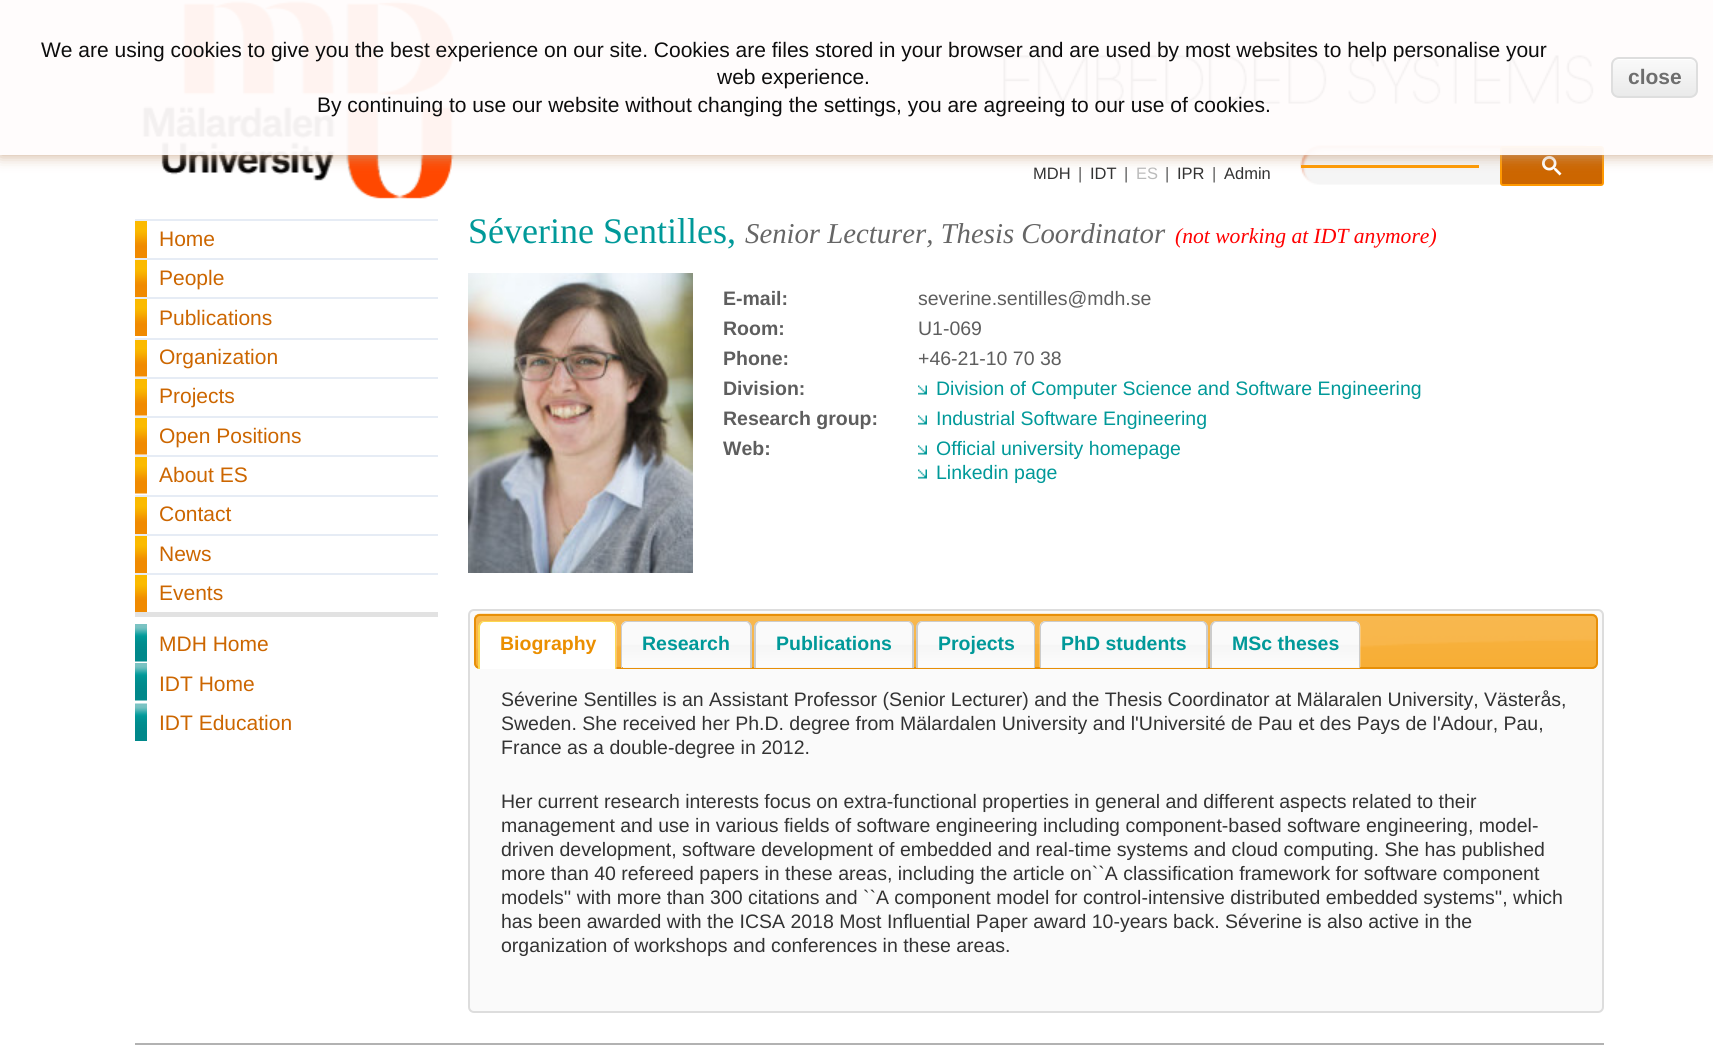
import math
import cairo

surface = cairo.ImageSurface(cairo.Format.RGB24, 1713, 1056)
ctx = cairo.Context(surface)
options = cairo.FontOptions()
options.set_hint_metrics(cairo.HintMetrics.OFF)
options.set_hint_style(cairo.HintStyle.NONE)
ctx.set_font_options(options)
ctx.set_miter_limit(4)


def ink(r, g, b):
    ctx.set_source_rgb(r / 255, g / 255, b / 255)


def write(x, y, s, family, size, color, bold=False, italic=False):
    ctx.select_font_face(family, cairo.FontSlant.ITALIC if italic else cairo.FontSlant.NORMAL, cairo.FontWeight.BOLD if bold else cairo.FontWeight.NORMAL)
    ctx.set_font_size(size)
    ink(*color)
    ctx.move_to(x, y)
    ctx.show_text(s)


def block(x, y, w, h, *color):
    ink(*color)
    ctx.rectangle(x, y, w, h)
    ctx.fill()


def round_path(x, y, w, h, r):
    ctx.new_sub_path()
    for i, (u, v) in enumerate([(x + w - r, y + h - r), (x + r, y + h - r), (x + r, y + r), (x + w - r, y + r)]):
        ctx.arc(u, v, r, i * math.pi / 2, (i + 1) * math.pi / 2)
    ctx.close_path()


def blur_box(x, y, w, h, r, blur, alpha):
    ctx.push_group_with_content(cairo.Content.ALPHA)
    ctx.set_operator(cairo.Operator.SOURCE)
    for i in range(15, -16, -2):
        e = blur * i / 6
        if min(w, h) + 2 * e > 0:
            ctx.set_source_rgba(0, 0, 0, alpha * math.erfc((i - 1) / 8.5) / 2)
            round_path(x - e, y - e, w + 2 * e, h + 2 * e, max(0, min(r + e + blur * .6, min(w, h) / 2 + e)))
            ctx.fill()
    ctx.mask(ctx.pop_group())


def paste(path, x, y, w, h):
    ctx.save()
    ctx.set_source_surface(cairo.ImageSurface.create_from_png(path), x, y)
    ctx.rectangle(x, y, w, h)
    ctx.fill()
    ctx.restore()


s1 = dict(family="Liberation Sans", size=21, color=(13, 13, 13))
s2 = dict(family="Liberation Sans", size=21, color=(110, 110, 110), bold=True)
s3 = dict(family="Liberation Sans", size=16.5, color=(51, 51, 51))
s4 = dict(family="Liberation Sans", size=16.5, color=(94, 94, 94))
s5 = dict(family="Liberation Sans", size=16.5, color=(187, 187, 187))
s6 = dict(family="Liberation Sans", size=21, color=(204, 102, 0))
s7 = dict(family="Liberation Serif", size=36, color=(0, 153, 153))
s8 = dict(family="Liberation Serif", size=28.75, color=(102, 102, 102), italic=True)
s9 = dict(family="Liberation Serif", size=21.6, color=(255, 0, 0), italic=True)
s10 = dict(family="Liberation Sans", size=19.5, color=(94, 94, 94), bold=True)
s11 = dict(family="Liberation Sans", size=19.5, color=(94, 94, 94))
s12 = dict(family="Liberation Sans", size=19.5, color=(0, 153, 153))
s13 = dict(family="Liberation Sans", size=19.5, color=(235, 143, 0), bold=True)
s14 = dict(family="Liberation Sans", size=19.5, color=(0, 153, 153), bold=True)
s15 = dict(family="Liberation Sans", size=19.5, color=(51, 51, 51))

ink(255, 255, 255)
ctx.paint()
block(135, 1043, 1469, 2, 178, 178, 178)
paste("pic1.png", 142, 1, 313, 198)
paste("pic2.png", 1003, 55, 591, 49)
paste("pic3.png", 1300, 145, 301, 40)
block(1301, 165, 178, 3, 255, 153, 0)
ink(204, 102, 0)
round_path(1501, 147, 102, 38, 2)
ctx.fill_preserve()
ink(255, 153, 0)
ctx.stroke()
paste("pic4.png", 1542, 156, 20, 20)
ctx.save()
ctx.set_fill_rule(cairo.FillRule.EVEN_ODD)
ctx.new_path()
ctx.move_to(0, 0)
ctx.line_to(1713, 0)
ctx.line_to(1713, 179)
ctx.line_to(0, 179)
ctx.close_path()
ctx.move_to(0, 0)
ctx.line_to(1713, 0)
ctx.line_to(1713, 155)
ctx.line_to(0, 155)
ctx.close_path()
ctx.clip()
ink(201, 163, 131)
blur_box(0, 0, 1713, 155, 0, 7.5, 0.95)
ctx.restore()
ctx.set_source_rgba(1, 0.988, 0.988, 0.95)
ctx.rectangle(0, 0, 1713, 155)
ctx.fill()
write(41, 57, "We are using cookies to give you the best experience on our site. Cookies are files stored in your browser and are used by most websites to help personalise your", **s1)
write(717, 84, "web experience.", **s1)
write(317, 112, "By continuing to use our website without changing the settings, you are agreeing to our use of cookies.", **s1)
ctx.save()
round_path(1611, 57, 87, 41, 8)
ctx.clip()
gradient = cairo.LinearGradient(1613, 59, 1613, 96)
gradient.add_color_stop_rgba(0.05, 0.976, 0.976, 0.976, 1)
gradient.add_color_stop_rgba(1, 0.918, 0.918, 0.918, 1)
ctx.set_source(gradient)
ctx.rectangle(1611, 59, 87, 37)
ctx.fill()
ctx.restore()
ink(255, 255, 255)
ctx.new_path()
ctx.move_to(1618, 60)
ctx.line_to(1690, 60)
ctx.curve_to(1698, 60, 1696, 70, 1696, 75)
ctx.line_to(1696, 94)
ctx.curve_to(1697, 93, 1697, 91, 1697, 90)
ctx.line_to(1697, 65)
ctx.curve_to(1697, 62, 1694, 59, 1691, 59)
ctx.line_to(1619, 59)
ctx.curve_to(1617, 59, 1615, 60, 1614, 62)
ctx.curve_to(1615, 61, 1617, 60, 1618, 60)
ctx.close_path()
ctx.fill()
round_path(1612, 58, 85, 39, 7)
ink(222, 222, 222)
ctx.stroke()
write(1628, 84, "close", **s2)
write(1033, 179, "MDH", **s3)
write(1078, 179, "|", **s4)
write(1090, 179, "IDT", **s3)
write(1124, 179, "|", **s4)
write(1136, 179, "ES", **s5)
write(1165, 179, "|", **s4)
write(1177, 179, "IPR", **s3)
write(1212, 179, "|", **s4)
write(1224, 179, "Admin", **s3)
block(135, 612, 303, 5, 226, 226, 226)
paste("pic5.png", 135, 221, 12, 37)
block(135, 219, 303, 2, 230, 236, 245)
write(159, 246, "Home", **s6)
paste("pic5.png", 135, 260, 12, 37)
block(135, 258, 303, 2, 230, 236, 245)
write(159, 285, "People", **s6)
paste("pic5.png", 135, 299, 12, 37)
block(135, 297, 303, 2, 230, 236, 245)
write(159, 325, "Publications", **s6)
paste("pic6.png", 135, 340, 12, 37)
block(135, 338, 303, 2, 230, 236, 245)
write(159, 364, "Organization", **s6)
paste("pic6.png", 135, 379, 12, 37)
block(135, 377, 303, 2, 230, 236, 245)
write(159, 403, "Projects", **s6)
paste("pic6.png", 135, 418, 12, 37)
block(135, 416, 303, 2, 230, 236, 245)
write(159, 443, "Open Positions", **s6)
paste("pic6.png", 135, 457, 12, 37)
block(135, 455, 303, 2, 230, 236, 245)
write(159, 482, "About ES", **s6)
paste("pic5.png", 135, 497, 12, 37)
block(135, 495, 303, 2, 230, 236, 245)
write(159, 521, "Contact", **s6)
paste("pic5.png", 135, 536, 12, 37)
block(135, 534, 303, 2, 230, 236, 245)
write(159, 561, "News", **s6)
paste("pic5.png", 135, 575, 12, 37)
block(135, 573, 303, 2, 230, 236, 245)
write(159, 600, "Events", **s6)
paste("pic7.png", 135, 624, 12, 38)
write(159, 651, "MDH Home", **s6)
paste("pic7.png", 135, 663, 12, 38)
write(159, 691, "IDT Home", **s6)
paste("pic8.png", 135, 703, 12, 38)
write(159, 730, "IDT Education", **s6)
write(468, 243, "Séverine Sentilles,", **s7)
write(745, 243, "Senior Lecturer, Thesis Coordinator", **s8)
write(1175, 243, "(not working at IDT anymore)", **s9)
paste("pic9.png", 468, 273, 225, 300)
write(723, 305, "E-mail:", **s10)
write(918, 305, "severine.sentilles@mdh.se", **s11)
write(723, 335, "Room:", **s10)
write(918, 335, "U1-069", **s11)
write(723, 365, "Phone:", **s10)
write(918, 365, "+46-21-10 70 38", **s11)
write(723, 395, "Division:", **s10)
paste("pic10.png", 918, 385, 9, 10)
write(936, 395, "Division of Computer Science and Software Engineering", **s12)
write(723, 425, "Research group:", **s10)
paste("pic10.png", 918, 415, 9, 10)
write(936, 425, "Industrial Software Engineering", **s12)
write(723, 455, "Web:", **s10)
paste("pic10.png", 918, 445, 9, 10)
write(936, 455, "Official university homepage", **s12)
paste("pic10.png", 918, 469, 9, 10)
write(936, 479, "Linkedin page", **s12)
ink(250, 250, 250)
round_path(469, 610, 1134, 402, 5)
ctx.fill_preserve()
ink(221, 221, 221)
ctx.stroke()
paste("pic11.png", 474, 613, 1124, 56)
round_path(475, 615, 1122, 53, 5)
ink(231, 143, 8)
ctx.stroke()
paste("pic12.png", 478, 621, 139, 48)
ink(251, 216, 80)
ctx.set_fill_rule(cairo.FillRule.EVEN_ODD)
ctx.new_path()
ctx.move_to(484, 621)
ctx.line_to(610, 621)
ctx.curve_to(614, 621, 616, 624, 616, 627)
ctx.line_to(616, 669)
ctx.line_to(478, 669)
ctx.line_to(478, 627)
ctx.curve_to(478, 624, 481, 621, 484, 621)
ctx.close_path()
ctx.move_to(484, 622)
ctx.line_to(610, 622)
ctx.curve_to(613, 622, 615, 625, 615, 627)
ctx.line_to(615, 669)
ctx.line_to(480, 669)
ctx.line_to(480, 627)
ctx.curve_to(480, 625, 482, 622, 484, 622)
ctx.close_path()
ctx.fill()
write(500, 650, "Biography", **s13)
block(623, 667, 127, 1, 246, 246, 246)
paste("pic13.png", 621, 621, 131, 47)
ink(204, 204, 204)
ctx.new_path()
ctx.move_to(627, 621)
ctx.line_to(746, 621)
ctx.curve_to(749, 621, 752, 624, 752, 627)
ctx.line_to(752, 668)
ctx.line_to(621, 668)
ctx.line_to(621, 627)
ctx.curve_to(621, 624, 624, 621, 627, 621)
ctx.close_path()
ctx.move_to(627, 622)
ctx.line_to(746, 622)
ctx.curve_to(748, 622, 750, 625, 750, 627)
ctx.line_to(750, 668)
ctx.line_to(622, 668)
ctx.line_to(622, 627)
ctx.curve_to(622, 625, 625, 622, 627, 622)
ctx.close_path()
ctx.fill()
write(642, 650, "Research", **s14)
block(756, 667, 156, 1, 246, 246, 246)
paste("pic14.png", 754, 621, 160, 47)
ink(204, 204, 204)
ctx.new_path()
ctx.move_to(760, 621)
ctx.line_to(908, 621)
ctx.curve_to(911, 621, 914, 624, 914, 627)
ctx.line_to(914, 668)
ctx.line_to(754, 668)
ctx.line_to(754, 627)
ctx.curve_to(754, 624, 757, 621, 760, 621)
ctx.close_path()
ctx.move_to(760, 622)
ctx.line_to(908, 622)
ctx.curve_to(910, 622, 912, 625, 912, 627)
ctx.line_to(912, 668)
ctx.line_to(756, 668)
ctx.line_to(756, 627)
ctx.curve_to(756, 625, 758, 622, 760, 622)
ctx.close_path()
ctx.fill()
write(776, 650, "Publications", **s14)
ink(246, 246, 246)
ctx.new_path()
ctx.move_to(923, 623)
ctx.line_to(1029, 623)
ctx.curve_to(1032, 623, 1034, 625, 1034, 628)
ctx.line_to(1034, 668)
ctx.line_to(918, 668)
ctx.line_to(918, 628)
ctx.curve_to(918, 625, 920, 623, 923, 623)
ctx.close_path()
ctx.fill()
paste("pic15.png", 916, 621, 119, 47)
ink(204, 204, 204)
ctx.new_path()
ctx.move_to(922, 621)
ctx.line_to(1029, 621)
ctx.curve_to(1032, 621, 1035, 624, 1035, 627)
ctx.line_to(1035, 668)
ctx.line_to(916, 668)
ctx.line_to(916, 627)
ctx.curve_to(916, 624, 919, 621, 922, 621)
ctx.close_path()
ctx.move_to(922, 622)
ctx.line_to(1029, 622)
ctx.curve_to(1031, 622, 1034, 625, 1034, 627)
ctx.line_to(1034, 668)
ctx.line_to(918, 668)
ctx.line_to(918, 627)
ctx.curve_to(918, 625, 920, 622, 922, 622)
ctx.close_path()
ctx.fill()
write(938, 650, "Projects", **s14)
block(1041, 667, 165, 1, 246, 246, 246)
paste("pic16.png", 1039, 621, 169, 47)
ink(204, 204, 204)
ctx.new_path()
ctx.move_to(1046, 621)
ctx.line_to(1202, 621)
ctx.curve_to(1205, 621, 1208, 624, 1208, 627)
ctx.line_to(1208, 668)
ctx.line_to(1040, 668)
ctx.line_to(1040, 627)
ctx.curve_to(1040, 624, 1042, 621, 1046, 621)
ctx.close_path()
ctx.move_to(1046, 622)
ctx.line_to(1202, 622)
ctx.curve_to(1204, 622, 1206, 625, 1206, 627)
ctx.line_to(1206, 668)
ctx.line_to(1041, 668)
ctx.line_to(1041, 627)
ctx.curve_to(1041, 625, 1043, 622, 1046, 622)
ctx.close_path()
ctx.fill()
write(1061, 650, "PhD students", **s14)
block(1212, 667, 147, 1, 246, 246, 246)
paste("pic17.png", 1210, 621, 151, 47)
ink(204, 204, 204)
ctx.new_path()
ctx.move_to(1216, 621)
ctx.line_to(1354, 621)
ctx.curve_to(1358, 621, 1360, 624, 1360, 627)
ctx.line_to(1360, 668)
ctx.line_to(1210, 668)
ctx.line_to(1210, 627)
ctx.curve_to(1210, 624, 1213, 621, 1216, 621)
ctx.close_path()
ctx.move_to(1216, 622)
ctx.line_to(1354, 622)
ctx.curve_to(1357, 622, 1359, 625, 1359, 627)
ctx.line_to(1359, 668)
ctx.line_to(1212, 668)
ctx.line_to(1212, 627)
ctx.curve_to(1212, 625, 1214, 622, 1216, 622)
ctx.close_path()
ctx.fill()
write(1232, 650, "MSc theses", **s14)
write(501, 706, "Séverine Sentilles is an Assistant Professor (Senior Lecturer) and the Thesis Coordinator at Mälaralen University, Västerås,", **s15)
write(501, 730, "Sweden. She received her Ph.D. degree from Mälardalen University and l'Université de Pau et des Pays de l'Adour, Pau,", **s15)
write(501, 754, "France as a double-degree in 2012.", **s15)
write(501, 808, "Her current research interests focus on extra-functional properties in general and different aspects related to their", **s15)
write(501, 832, "management and use in various fields of software engineering including component-based software engineering, model-", **s15)
write(501, 856, "driven development, software development of embedded and real-time systems and cloud computing. She has published", **s15)
write(501, 880, "more than 40 refereed papers in these areas, including the article on``A classification framework for software component", **s15)
write(501, 904, "models'' with more than 300 citations and ``A component model for control-intensive distributed embedded systems'', which", **s15)
write(501, 928, "has been awarded with the ICSA 2018 Most Influential Paper award 10-years back. Séverine is also active in the", **s15)
write(501, 952, "organization of workshops and conferences in these areas.", **s15)
surface.write_to_png("screenshot.png")
